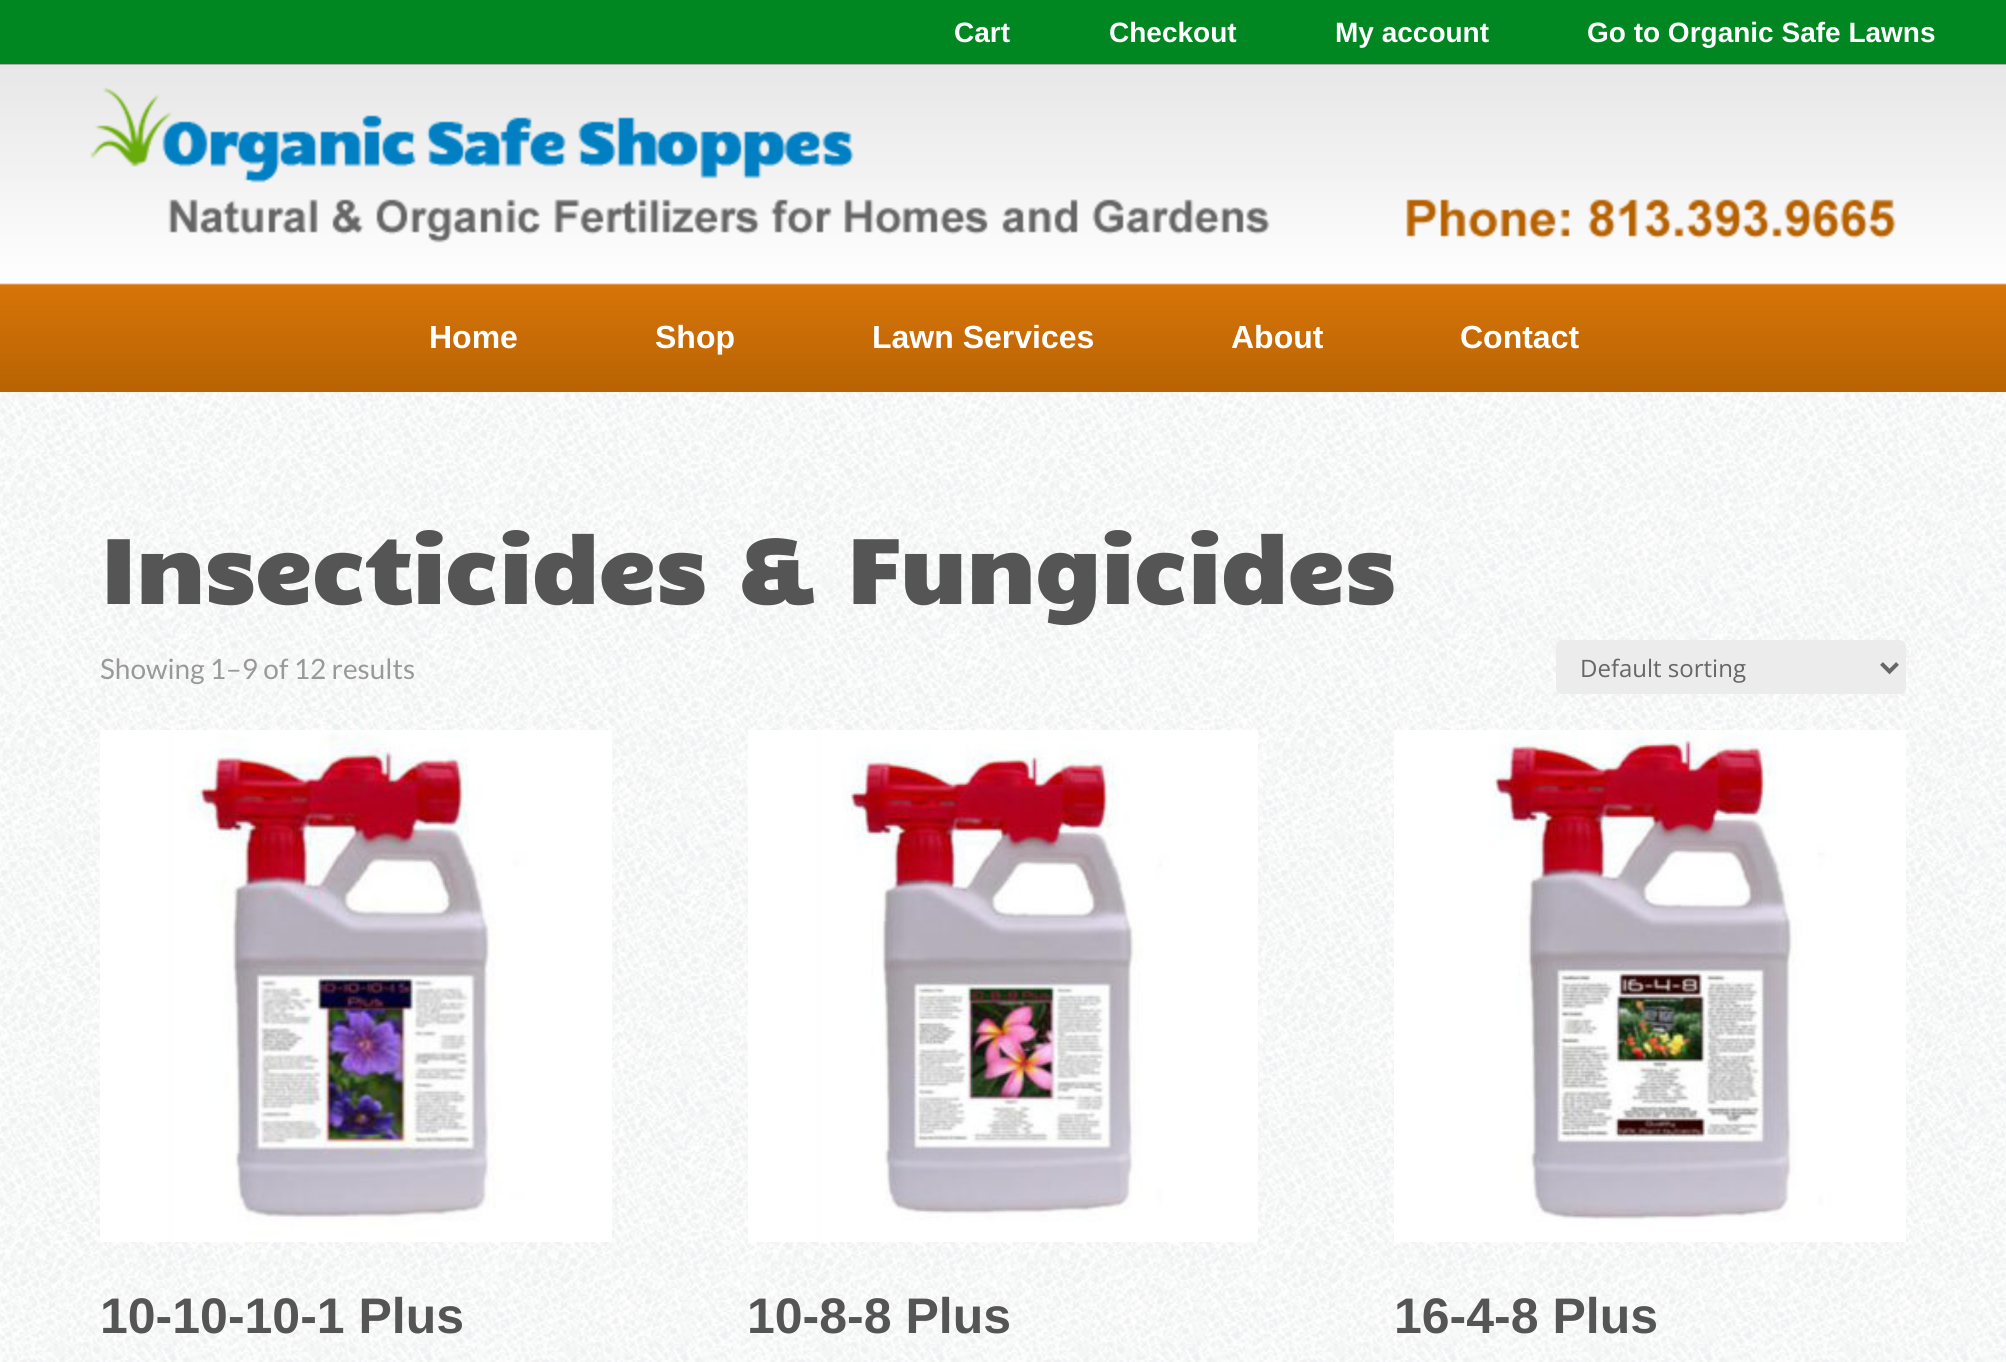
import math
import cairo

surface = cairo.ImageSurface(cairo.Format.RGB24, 2006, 1362)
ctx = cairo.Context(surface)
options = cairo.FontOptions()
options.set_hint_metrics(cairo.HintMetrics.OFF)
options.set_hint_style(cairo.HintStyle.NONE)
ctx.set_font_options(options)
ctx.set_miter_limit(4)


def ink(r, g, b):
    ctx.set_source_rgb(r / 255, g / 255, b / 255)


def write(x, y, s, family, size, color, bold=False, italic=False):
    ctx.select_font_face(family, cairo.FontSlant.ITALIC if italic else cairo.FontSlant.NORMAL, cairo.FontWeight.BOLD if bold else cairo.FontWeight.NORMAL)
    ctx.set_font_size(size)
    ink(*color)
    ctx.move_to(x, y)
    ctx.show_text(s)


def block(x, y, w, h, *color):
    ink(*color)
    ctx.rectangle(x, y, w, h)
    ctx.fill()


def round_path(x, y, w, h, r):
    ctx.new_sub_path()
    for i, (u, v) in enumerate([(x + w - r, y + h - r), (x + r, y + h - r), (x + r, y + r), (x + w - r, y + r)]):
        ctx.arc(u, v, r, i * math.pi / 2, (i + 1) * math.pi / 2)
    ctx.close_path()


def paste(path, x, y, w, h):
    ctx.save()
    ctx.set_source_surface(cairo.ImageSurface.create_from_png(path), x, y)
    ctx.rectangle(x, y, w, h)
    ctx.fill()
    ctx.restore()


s1 = dict(family="Liberation Sans", size=28, color=(255, 255, 255), bold=True)
s2 = dict(family="Liberation Sans", size=32, color=(255, 255, 255), bold=True)
s3 = dict(family="Candal", size=90, color=(85, 85, 85), bold=True)
s4 = dict(family="Lato", size=28, color=(153, 153, 153))
s5 = dict(family="Open Sans", size=24, color=(102, 102, 102))
s6 = dict(family="Liberation Sans", size=50, color=(85, 85, 85), bold=True)

ink(255, 255, 255)
ctx.paint()
paste("pic1.png", 0, 392, 2006, 970)
paste("pic2.png", 0, 64, 2006, 328)
block(0, 0, 2006, 64, 0, 135, 33)
write(954, 42, "Cart", **s1)
write(1109, 42, "Checkout", **s1)
write(1335, 42, "My account", **s1)
write(1587, 42, "Go to Organic Safe Lawns", **s1)
paste("pic3.png", 90, 87, 1806, 156)
write(429, 348, "Home", **s2)
write(655, 348, "Shop", **s2)
write(872, 348, "Lawn Services", **s2)
write(1231, 348, "About", **s2)
write(1460, 348, "Contact", **s2)
write(100, 604, "Insecticides & Fungicides", **s3)
write(100, 679, "Showing 1–9 of 12 results", **s4)
ink(236, 236, 236)
round_path(1556, 640, 350, 54, 6)
ctx.fill()
ctx.new_path()
ctx.move_to(1881.5, 663.5)
ctx.line_to(1889.5, 671.5)
ctx.line_to(1897.5, 663.5)
ink(102, 102, 102)
ctx.set_line_width(4)
ctx.stroke()
write(1580, 677, "Default sorting", **s5)
paste("pic4.png", 100, 730, 512, 512)
write(100, 1333, "10-10-10-1 Plus", **s6)
paste("pic5.png", 748, 730, 510, 512)
write(747, 1333, "10-8-8 Plus", **s6)
paste("pic6.png", 1394, 730, 512, 512)
write(1394, 1333, "16-4-8 Plus", **s6)
surface.write_to_png("screenshot.png")
